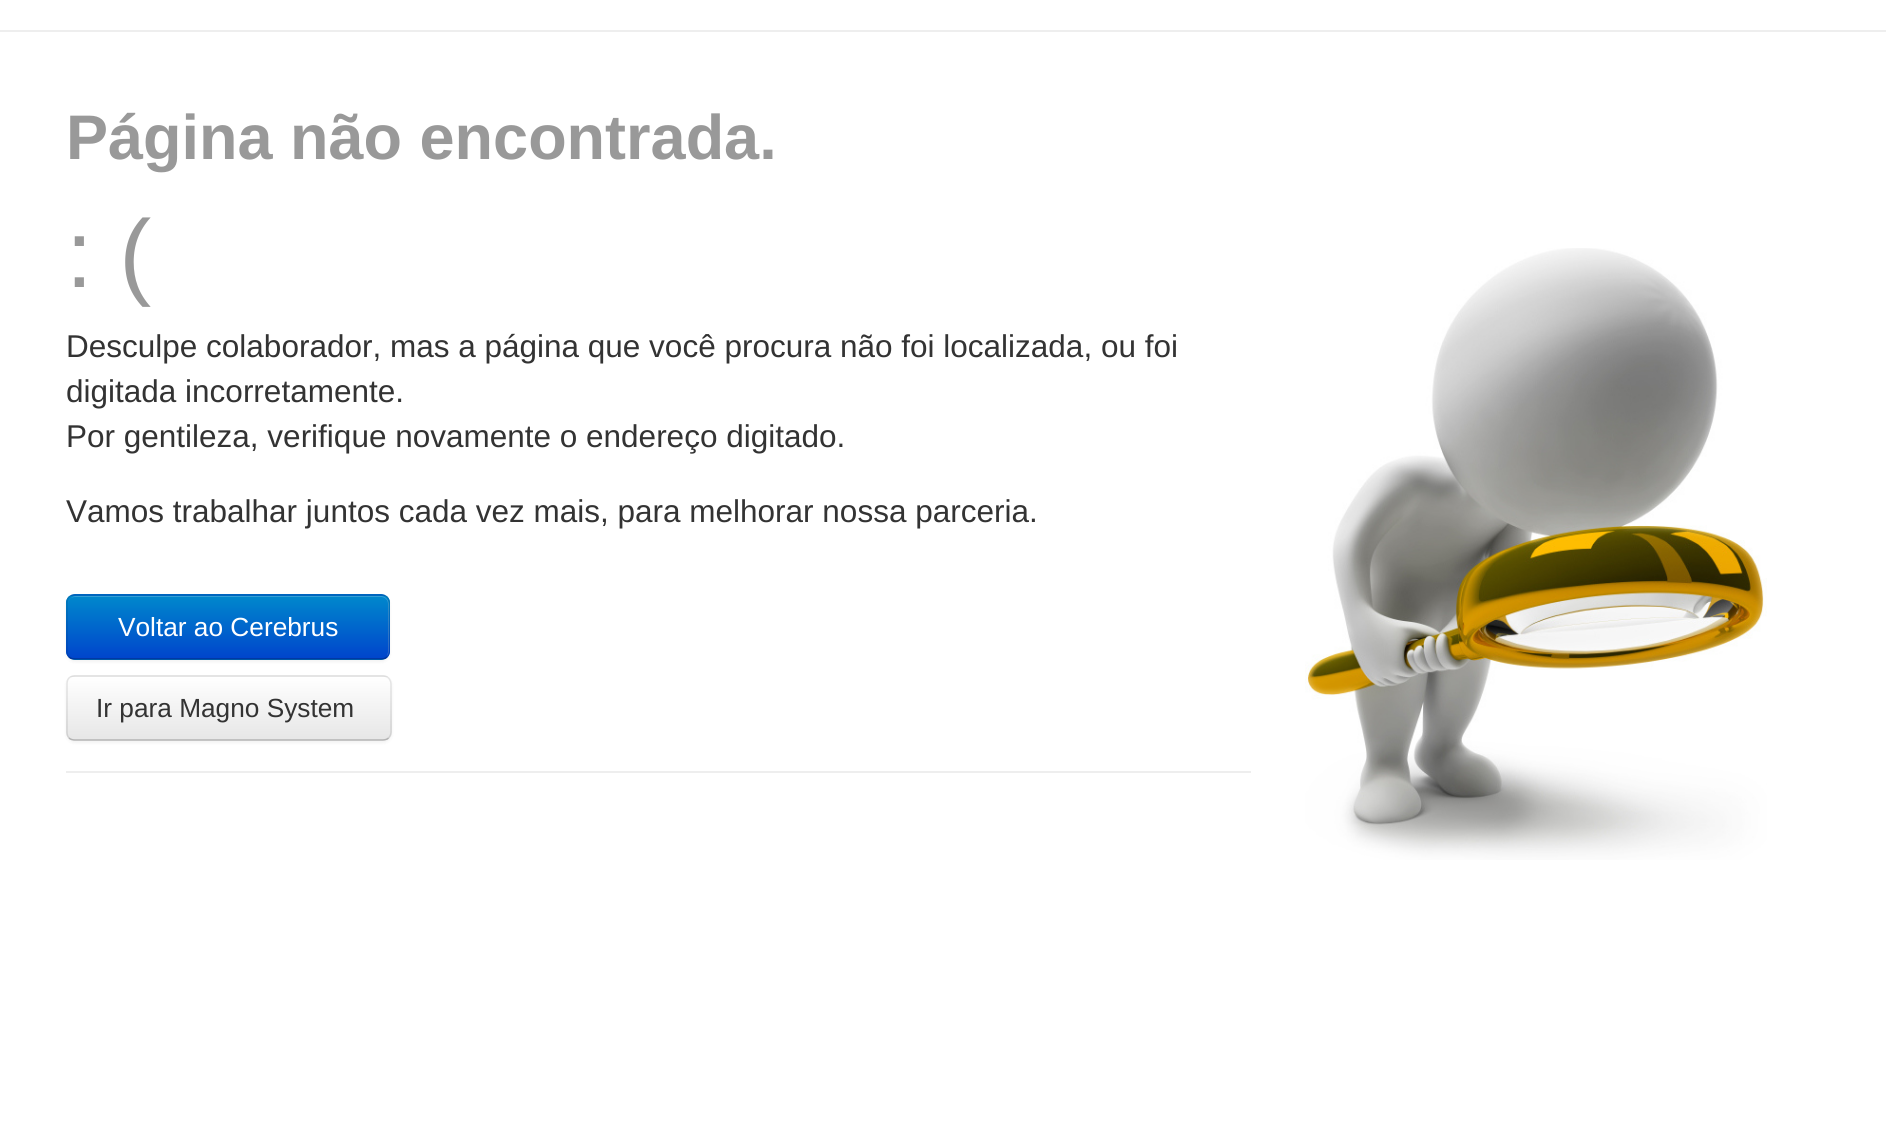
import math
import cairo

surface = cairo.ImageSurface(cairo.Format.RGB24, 1886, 1133)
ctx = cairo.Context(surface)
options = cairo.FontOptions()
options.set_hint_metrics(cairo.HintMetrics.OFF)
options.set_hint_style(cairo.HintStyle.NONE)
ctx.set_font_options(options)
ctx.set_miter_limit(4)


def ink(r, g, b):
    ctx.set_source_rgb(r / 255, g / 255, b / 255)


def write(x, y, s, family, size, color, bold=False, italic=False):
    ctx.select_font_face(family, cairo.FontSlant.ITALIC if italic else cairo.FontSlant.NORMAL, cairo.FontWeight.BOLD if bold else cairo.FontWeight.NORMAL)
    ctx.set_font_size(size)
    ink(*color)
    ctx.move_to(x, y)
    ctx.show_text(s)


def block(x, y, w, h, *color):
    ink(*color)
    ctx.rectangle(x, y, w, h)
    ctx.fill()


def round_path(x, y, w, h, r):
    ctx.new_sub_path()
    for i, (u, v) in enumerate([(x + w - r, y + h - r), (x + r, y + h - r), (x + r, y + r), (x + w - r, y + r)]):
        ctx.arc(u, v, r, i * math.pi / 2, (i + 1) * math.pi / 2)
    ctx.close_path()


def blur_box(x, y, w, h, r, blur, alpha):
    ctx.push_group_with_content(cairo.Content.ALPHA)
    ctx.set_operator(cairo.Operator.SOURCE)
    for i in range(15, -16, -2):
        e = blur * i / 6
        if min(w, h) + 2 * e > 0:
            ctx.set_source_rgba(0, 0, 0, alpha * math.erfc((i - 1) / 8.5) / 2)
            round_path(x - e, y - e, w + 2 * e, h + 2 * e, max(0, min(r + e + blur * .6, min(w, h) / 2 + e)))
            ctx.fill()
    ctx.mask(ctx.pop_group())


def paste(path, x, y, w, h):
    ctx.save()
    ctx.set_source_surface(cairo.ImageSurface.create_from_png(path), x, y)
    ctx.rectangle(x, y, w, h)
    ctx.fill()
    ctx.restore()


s1 = dict(family="Liberation Sans", size=63, color=(153, 153, 153), bold=True)
s2 = dict(family="Liberation Sans", size=96, color=(153, 153, 153))
s3 = dict(family="Liberation Sans", size=31.5, color=(51, 51, 51))
s4 = dict(family="Liberation Sans", size=26.25, color=(255, 255, 255))
s5 = dict(family="Liberation Sans", size=26.25, color=(51, 51, 51))

ink(255, 255, 255)
ctx.paint()
block(0, 30, 1886, 2, 238, 238, 238)
write(66, 159, "Página não encontrada.", **s1)
write(66, 287, ": (", **s2)
paste("pic1.png", 1305, 248, 462, 612)
write(66, 357, "Desculpe colaborador, mas a página que você procura não foi localizada, ou foi", **s3)
write(66, 402, "digitada incorretamente.", **s3)
write(66, 447, "Por gentileza, verifique novamente o endereço digitado.", **s3)
write(66, 522, "Vamos trabalhar juntos cada vez mais, para melhorar nossa parceria.", **s3)
ink(0, 0, 0)
blur_box(66, 596, 324, 66, 9, 1.5, 0.05)
ink(0, 109, 204)
round_path(66, 594, 324, 66, 9)
ctx.fill()
ctx.save()
round_path(66, 594, 324, 66, 9)
ctx.clip()
gradient = cairo.LinearGradient(228, 596, 228, 659)
gradient.add_color_stop_rgba(0, 0, 0.533, 0.8, 1)
gradient.add_color_stop_rgba(1, 0, 0.267, 0.8, 1)
ctx.set_source(gradient)
ctx.rectangle(66, 596, 324, 63)
ctx.fill()
ctx.restore()
ctx.set_source_rgba(1, 1, 1, 0.2)
ctx.new_path()
ctx.move_to(75, 597)
ctx.line_to(381, 597)
ctx.curve_to(385, 597, 388, 600, 388, 604)
ctx.line_to(388, 652)
ctx.line_to(387, 656)
ctx.curve_to(388, 655, 389, 653, 389, 651)
ctx.line_to(389, 604)
ctx.curve_to(389, 600, 385, 596, 381, 596)
ctx.line_to(76, 596)
ctx.curve_to(72, 596, 68, 600, 68, 604)
ctx.curve_to(68, 600, 71, 597, 75, 597)
ctx.close_path()
ctx.fill()
ctx.new_path()
ctx.move_to(387, 657)
ctx.curve_to(385.5, 658.5, 383, 659, 381, 659)
ctx.line_to(75, 659)
ctx.curve_to(73, 659, 70.5, 658.5, 69, 657)
ctx.set_source_rgba(0, 0, 0, 0.25)
ctx.set_line_width(1.5)
ctx.stroke()
ctx.new_path()
ctx.move_to(69, 657)
ctx.curve_to(67.5, 655.5, 67, 653, 67, 651)
ctx.line_to(67, 603)
ctx.curve_to(67, 601, 67.5, 598.5, 69, 597)
ctx.curve_to(70.5, 595.5, 73, 595, 75, 595)
ctx.line_to(381, 595)
ctx.curve_to(383, 595, 385.5, 595.5, 387, 597)
ctx.curve_to(388.5, 598.5, 389, 601, 389, 603)
ctx.line_to(389, 651)
ctx.curve_to(389, 653, 388.5, 655.5, 387, 657)
ctx.set_source_rgba(0, 0, 0, 0.1)
ctx.stroke()
write(118, 636, "Voltar ao Cerebrus", **s4)
ink(0, 0, 0)
blur_box(66, 677, 326, 66, 9, 1.5, 0.05)
ink(245, 245, 245)
round_path(66, 675, 326, 66, 9)
ctx.fill()
ctx.save()
round_path(66, 675, 326, 66, 9)
ctx.clip()
gradient = cairo.LinearGradient(229, 677, 229, 740)
gradient.add_color_stop_rgba(0, 1, 1, 1, 1)
gradient.add_color_stop_rgba(1, 0.902, 0.902, 0.902, 1)
ctx.set_source(gradient)
ctx.rectangle(66, 677, 326, 63)
ctx.fill()
ctx.restore()
ctx.new_path()
ctx.move_to(388.5, 738)
ctx.curve_to(387, 739.5, 384.5, 740, 382.5, 740)
ctx.line_to(75, 740)
ctx.curve_to(73, 740, 70.5, 739.5, 69, 738)
ink(179, 179, 179)
ctx.stroke()
ctx.new_path()
ctx.move_to(69, 738)
ctx.curve_to(67.5, 736.5, 67, 734, 67, 732)
ctx.line_to(67, 684)
ctx.curve_to(67, 682, 67.5, 679.5, 69, 678)
ctx.curve_to(70.5, 676.5, 73, 676, 75, 676)
ctx.line_to(382.5, 676)
ctx.curve_to(384.5, 676, 387, 676.5, 388.5, 678)
ctx.curve_to(390, 679.5, 391, 682, 391, 684)
ctx.line_to(391, 732)
ctx.curve_to(391, 734, 390, 736.5, 388.5, 738)
ctx.set_source_rgba(0, 0, 0, 0.1)
ctx.stroke()
write(96, 717, "Ir para Magno System", **s5)
block(66, 771, 1185, 2, 238, 238, 238)
surface.write_to_png("screenshot.png")
